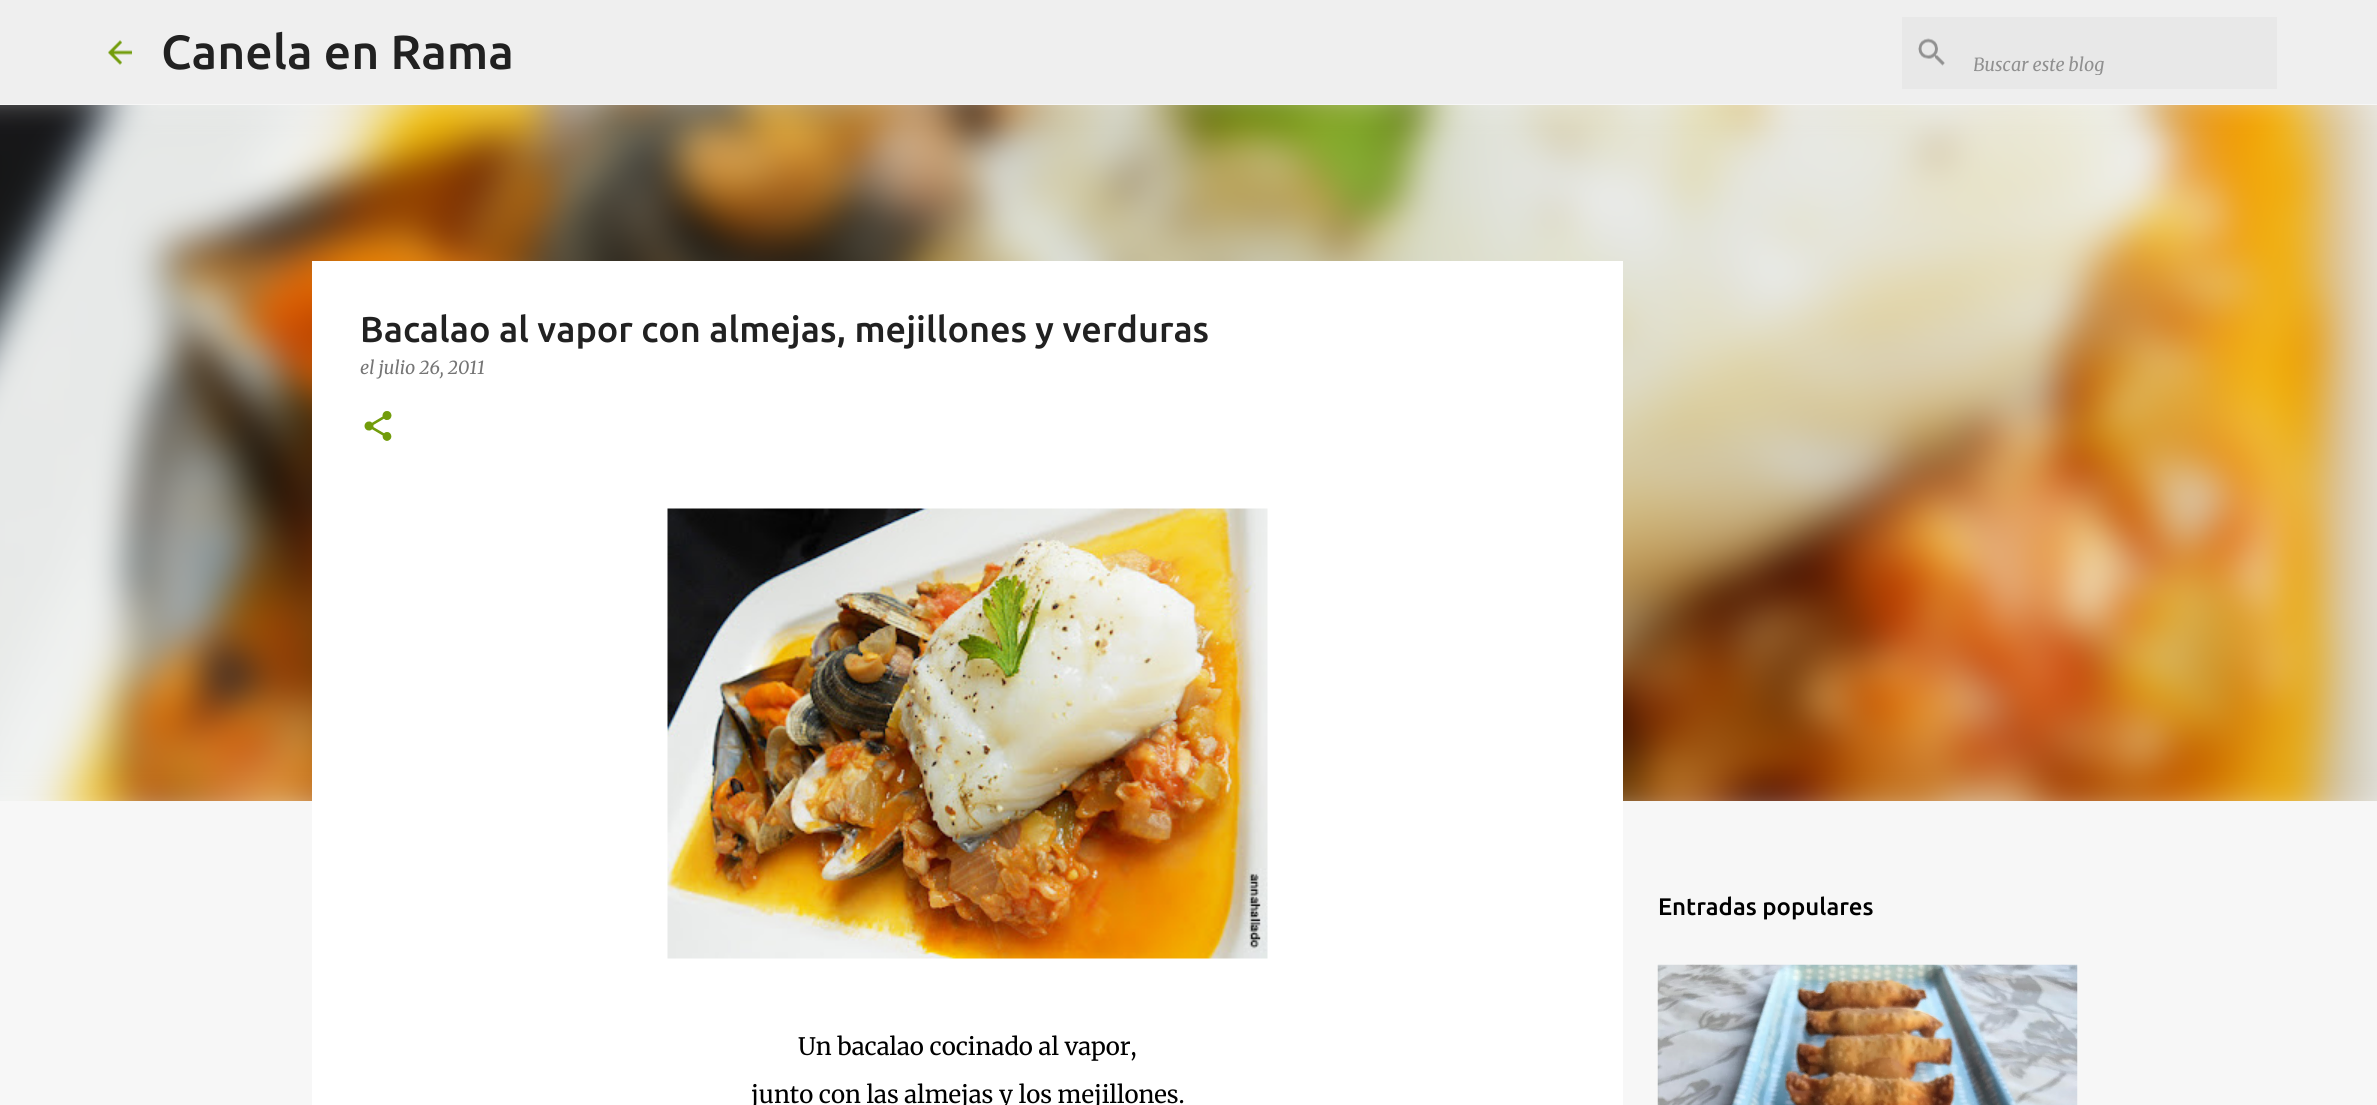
import math
import cairo

surface = cairo.ImageSurface(cairo.Format.RGB24, 2377, 1105)
ctx = cairo.Context(surface)
options = cairo.FontOptions()
options.set_hint_metrics(cairo.HintMetrics.OFF)
options.set_hint_style(cairo.HintStyle.NONE)
ctx.set_font_options(options)
ctx.set_miter_limit(4)


def ink(r, g, b):
    ctx.set_source_rgb(r / 255, g / 255, b / 255)


def write(x, y, s, family, size, color, bold=False, italic=False):
    ctx.select_font_face(family, cairo.FontSlant.ITALIC if italic else cairo.FontSlant.NORMAL, cairo.FontWeight.BOLD if bold else cairo.FontWeight.NORMAL)
    ctx.set_font_size(size)
    ink(*color)
    ctx.move_to(x, y)
    ctx.show_text(s)


def block(x, y, w, h, *color):
    ink(*color)
    ctx.rectangle(x, y, w, h)
    ctx.fill()


def paste(path, x, y, w, h):
    ctx.save()
    ctx.set_source_surface(cairo.ImageSurface.create_from_png(path), x, y)
    ctx.rectangle(x, y, w, h)
    ctx.fill()
    ctx.restore()


s1 = dict(family="Ubuntu Medium", size=48, color=(33, 33, 33))
s2 = dict(family="Merriweather", size=18, color=(144, 144, 144), italic=True)
s3 = dict(family="Ubuntu Medium", size=36, color=(33, 33, 33))
s4 = dict(family="Merriweather", size=18, color=(117, 117, 117), italic=True)
s5 = dict(family="Merriweather Light", size=24, color=(0, 0, 0))
s6 = dict(family="Ubuntu Medium", size=24, color=(0, 0, 0))

ink(247, 247, 247)
ctx.paint()
block(0, 0, 2377, 104, 239, 239, 239)
paste("pic1.png", 108, 40, 24, 25)
write(161, 69, "Canela en Rama", **s1)
block(1902, 17, 375, 72, 232, 232, 232)
paste("pic2.png", 1918, 38, 27, 28)
ctx.save()
ctx.rectangle(1974, 53, 291, 22)
ctx.clip()
write(1973, 71, "Buscar este blog", **s2)
ctx.restore()
paste("pic6.png", 0, 105, 2377, 696)
block(312, 261, 1311, 844, 255, 255, 255)
write(360, 342, "Bacalao al vapor con almejas, mejillones y verduras", **s3)
write(360, 374, "el julio 26, 2011", **s4)
paste("pic3.png", 364, 411, 28, 30)
paste("pic4.png", 667, 508, 601, 451)
write(798, 1055, "Un bacalao cocinado al vapor,", **s5)
write(751, 1103, "junto con las almejas y los mejillones.", **s5)
write(1658, 915, "Entradas populares", **s6)
paste("pic5.png", 1657, 964, 421, 141)
surface.write_to_png("screenshot.png")
